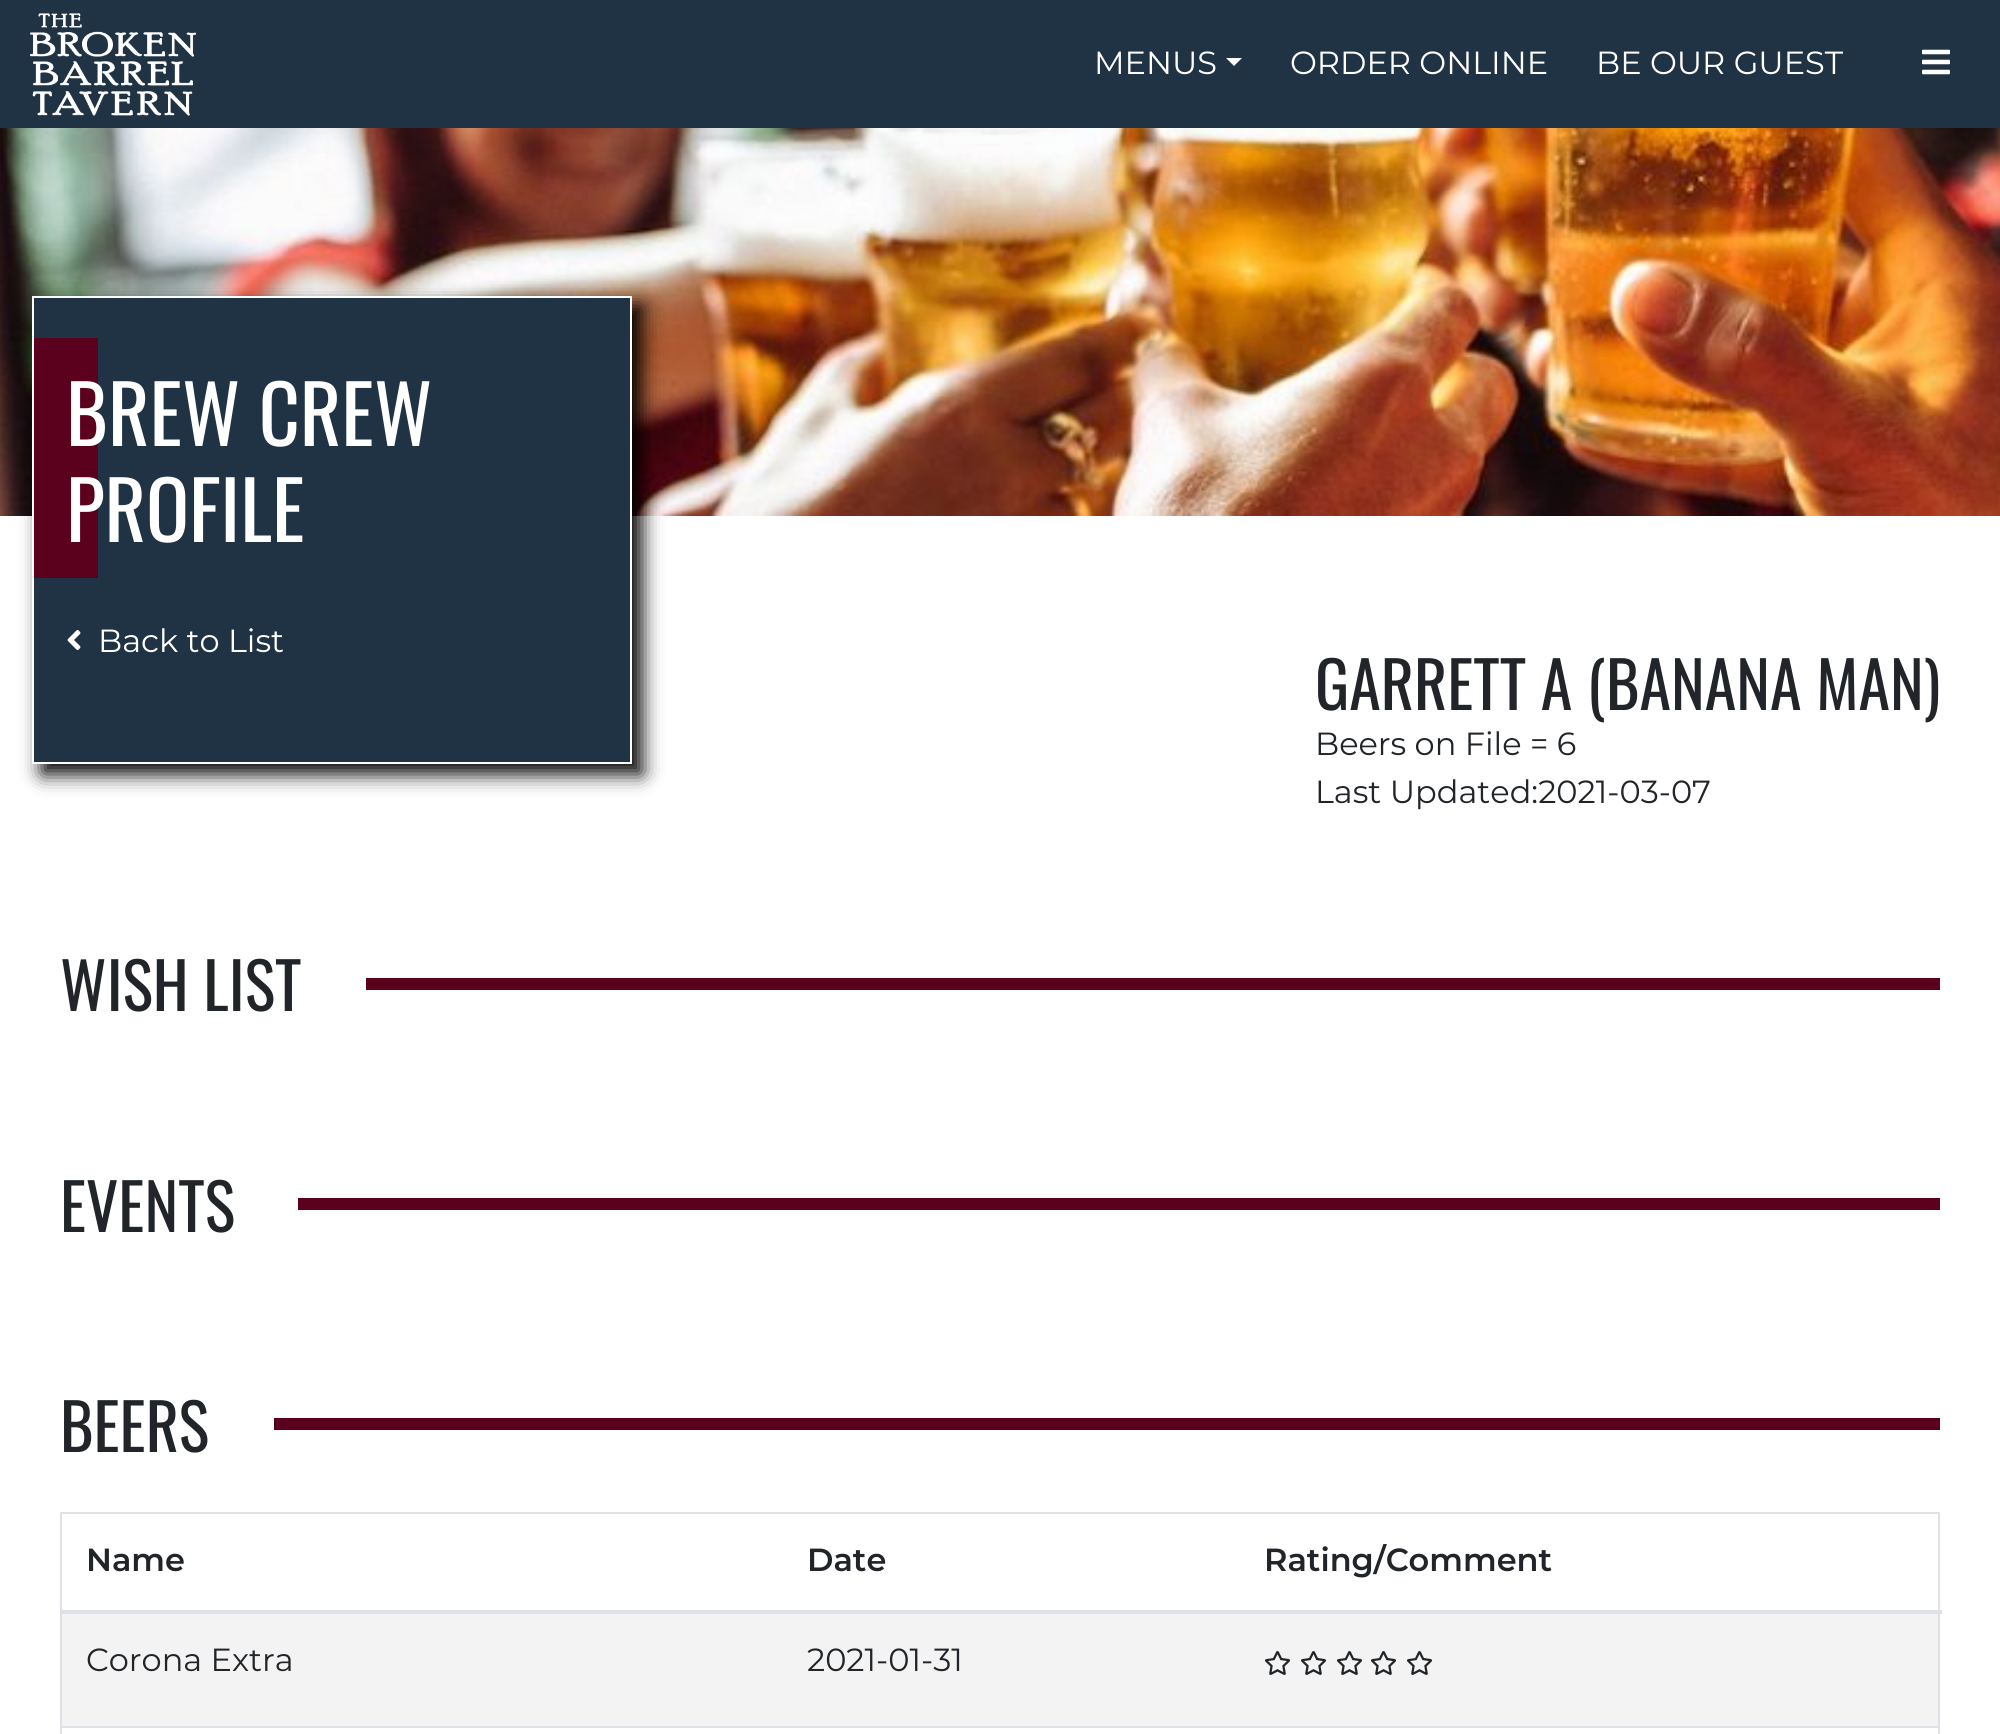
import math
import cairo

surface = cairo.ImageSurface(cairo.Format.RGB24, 2000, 1734)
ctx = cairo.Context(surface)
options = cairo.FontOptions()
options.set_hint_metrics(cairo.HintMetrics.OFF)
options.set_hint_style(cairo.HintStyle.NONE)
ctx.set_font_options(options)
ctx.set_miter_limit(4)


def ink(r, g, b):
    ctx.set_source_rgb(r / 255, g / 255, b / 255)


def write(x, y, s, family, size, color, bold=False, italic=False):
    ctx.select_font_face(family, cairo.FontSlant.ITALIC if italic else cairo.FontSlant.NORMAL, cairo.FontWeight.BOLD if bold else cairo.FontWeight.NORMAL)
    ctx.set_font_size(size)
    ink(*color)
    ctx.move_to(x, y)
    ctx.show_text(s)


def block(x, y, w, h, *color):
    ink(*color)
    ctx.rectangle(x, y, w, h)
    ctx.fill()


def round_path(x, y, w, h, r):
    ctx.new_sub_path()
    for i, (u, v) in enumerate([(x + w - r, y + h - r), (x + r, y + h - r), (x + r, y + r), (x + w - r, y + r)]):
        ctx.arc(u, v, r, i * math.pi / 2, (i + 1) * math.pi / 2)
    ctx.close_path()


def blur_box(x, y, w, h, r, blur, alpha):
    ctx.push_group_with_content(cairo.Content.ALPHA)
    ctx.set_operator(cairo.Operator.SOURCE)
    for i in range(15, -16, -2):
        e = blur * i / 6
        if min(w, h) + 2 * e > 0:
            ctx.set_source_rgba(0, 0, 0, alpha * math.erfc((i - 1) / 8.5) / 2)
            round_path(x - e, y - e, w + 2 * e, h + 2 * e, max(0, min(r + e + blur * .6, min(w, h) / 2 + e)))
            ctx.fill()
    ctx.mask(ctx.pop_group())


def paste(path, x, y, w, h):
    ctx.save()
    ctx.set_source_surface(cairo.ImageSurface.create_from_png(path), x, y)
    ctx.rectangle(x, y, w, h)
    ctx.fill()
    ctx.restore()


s1 = dict(family="Montserrat", size=32, color=(255, 255, 255))
s2 = dict(family="Oswald", size=80, color=(255, 255, 255))
s3 = dict(family="Oswald", size=64, color=(33, 37, 41))
s4 = dict(family="Montserrat", size=32, color=(33, 37, 41))
s5 = dict(family="Montserrat SemiBold", size=32, color=(33, 37, 41))

ink(255, 255, 255)
ctx.paint()
block(0, 0, 2000, 128, 32, 51, 69)
paste("pic1.png", 30, 13, 166, 103)
write(1094, 74, "MENUS", **s1)
ctx.new_path()
ctx.move_to(1226, 58)
ctx.line_to(1242, 58)
ctx.line_to(1234, 66)
ctx.close_path()
ctx.fill()
write(1290, 74, "ORDER ONLINE", **s1)
write(1596, 74, "BE OUR GUEST", **s1)
paste("pic2.png", 1922, 49, 28, 26)
paste("pic3.png", 0, 128, 2000, 388)
ink(0, 0, 0)
blur_box(42, 306, 600, 468, 0, 10, 1)
ink(32, 51, 69)
ctx.rectangle(33, 297, 598, 466)
ctx.fill_preserve()
ink(255, 255, 255)
ctx.stroke()
block(34, 338, 64, 240, 91, 0, 29)
write(66, 446, "BREW CREW", **s2)
write(66, 542, "PROFILE", **s2)
paste("pic4.png", 67, 630, 14, 20)
write(98, 652, "Back to List", **s1)
write(1315, 710, "GARRETT A (BANANA MAN)", **s3)
write(1315, 755, "Beers on File = 6", **s4)
write(1315, 803, "Last Updated:2021-03-07", **s4)
write(60, 1011, "WISH LIST", **s3)
block(366, 978, 1574, 12, 91, 0, 29)
write(60, 1232, "EVENTS", **s3)
block(298, 1198, 1642, 12, 91, 0, 29)
write(60, 1452, "BEERS", **s3)
block(274, 1418, 1666, 12, 91, 0, 29)
block(60, 1512, 1880, 2, 222, 226, 230)
block(1938, 1512, 2, 222, 222, 226, 230)
block(60, 1512, 2, 222, 222, 226, 230)
write(86, 1571, "Name", **s5)
write(807, 1571, "Date", **s5)
block(60, 1610, 1882, 4, 222, 226, 230)
write(1264, 1571, "Rating/Comment", **s5)
block(62, 1614, 1876, 112, 243, 243, 243)
write(86, 1671, "Corona Extra", **s4)
write(807, 1671, "2021-01-31", **s4)
paste("pic5.png", 1265, 1651, 25, 24)
paste("pic5.png", 1301, 1651, 25, 24)
paste("pic5.png", 1337, 1651, 25, 24)
paste("pic5.png", 1371, 1651, 25, 24)
paste("pic5.png", 1407, 1651, 25, 24)
block(60, 1726, 1880, 2, 222, 226, 230)
surface.write_to_png("screenshot.png")
